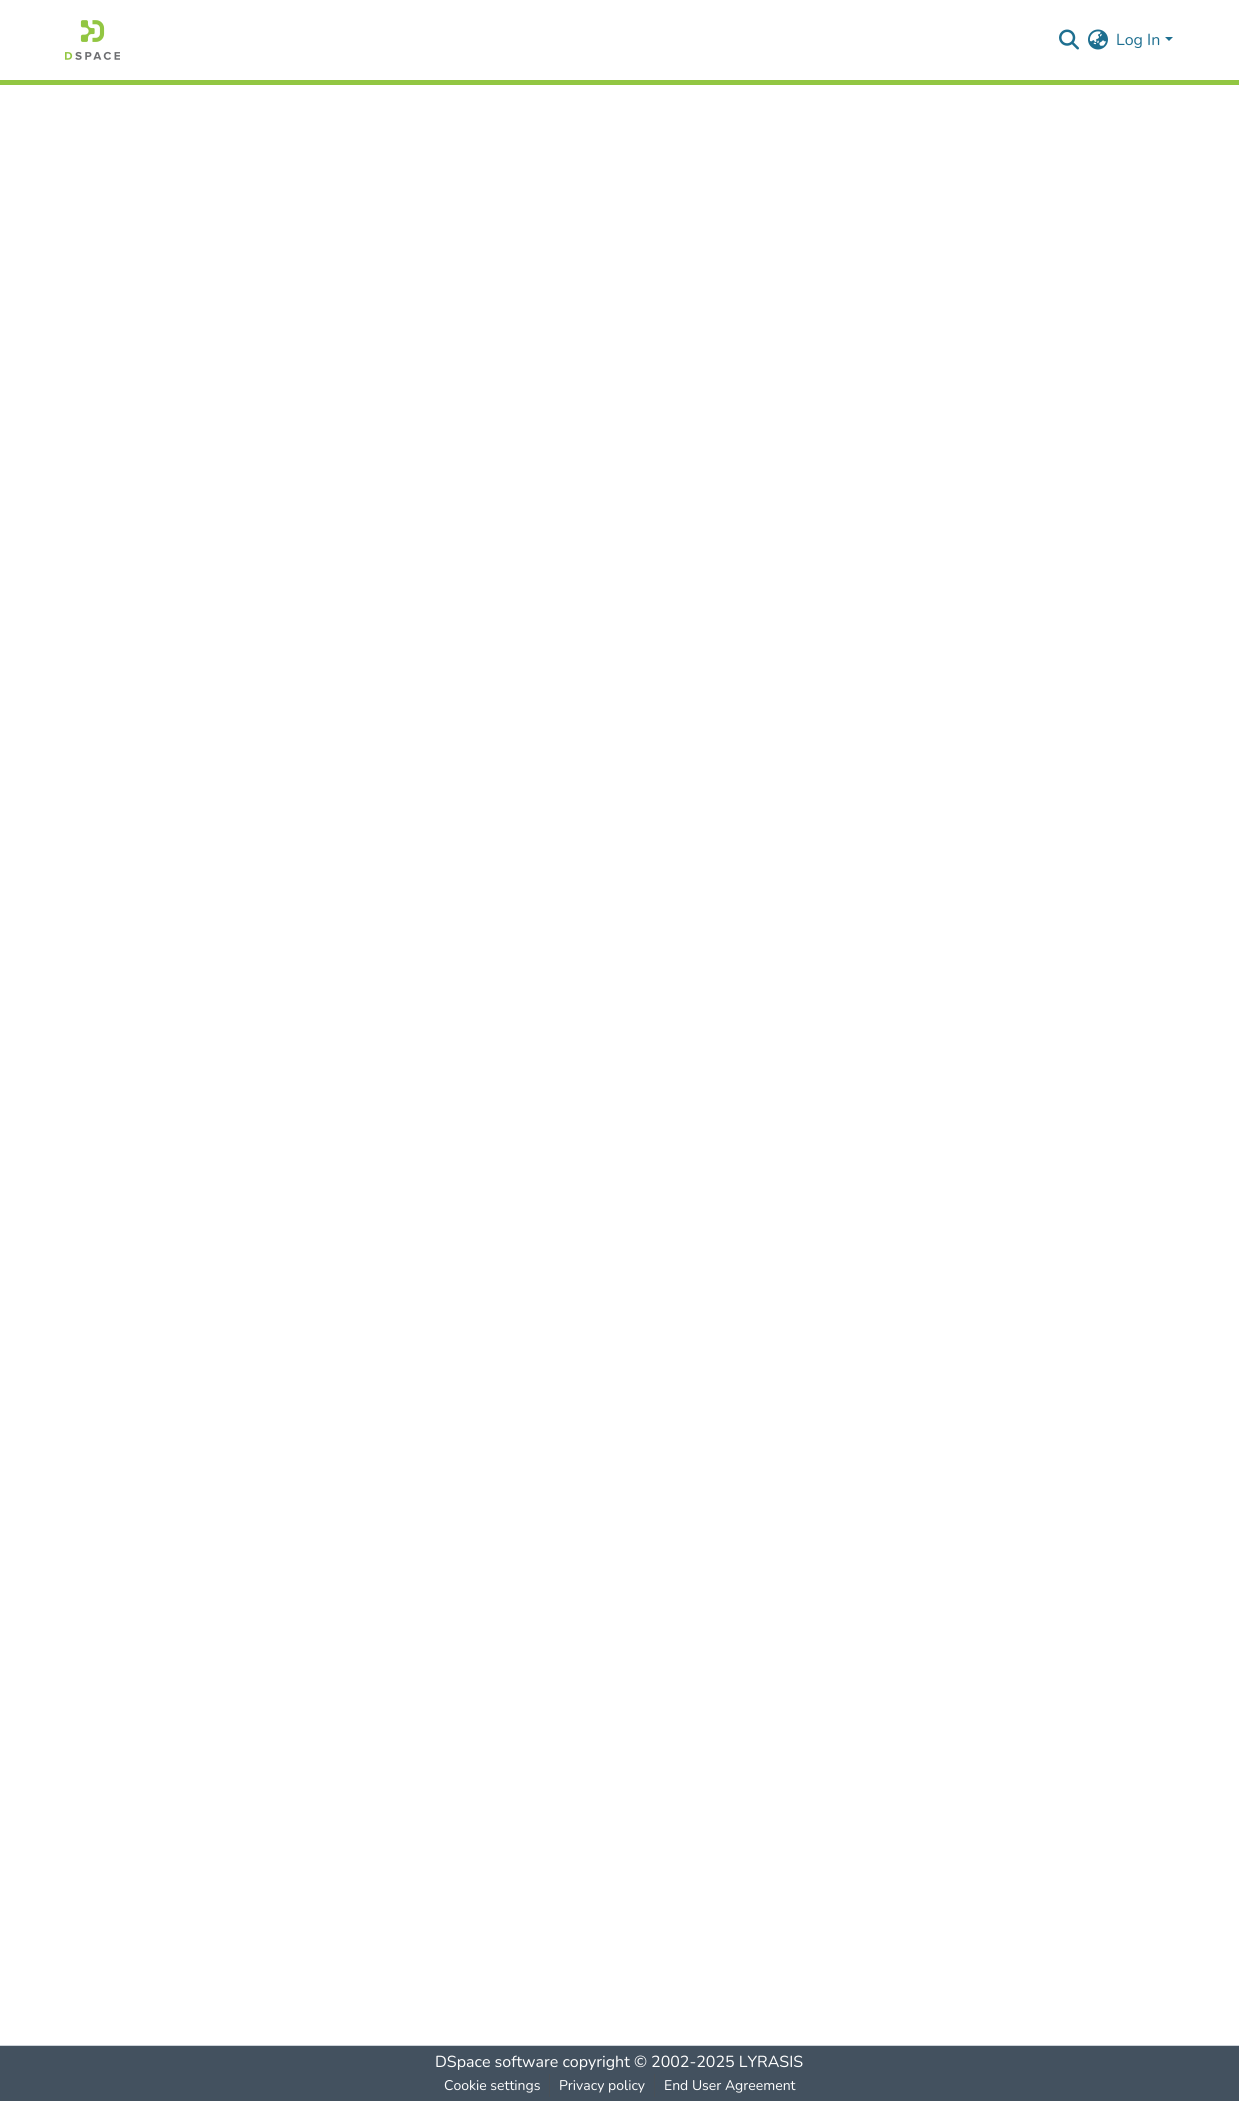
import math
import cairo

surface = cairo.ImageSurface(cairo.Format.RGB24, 1239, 2101)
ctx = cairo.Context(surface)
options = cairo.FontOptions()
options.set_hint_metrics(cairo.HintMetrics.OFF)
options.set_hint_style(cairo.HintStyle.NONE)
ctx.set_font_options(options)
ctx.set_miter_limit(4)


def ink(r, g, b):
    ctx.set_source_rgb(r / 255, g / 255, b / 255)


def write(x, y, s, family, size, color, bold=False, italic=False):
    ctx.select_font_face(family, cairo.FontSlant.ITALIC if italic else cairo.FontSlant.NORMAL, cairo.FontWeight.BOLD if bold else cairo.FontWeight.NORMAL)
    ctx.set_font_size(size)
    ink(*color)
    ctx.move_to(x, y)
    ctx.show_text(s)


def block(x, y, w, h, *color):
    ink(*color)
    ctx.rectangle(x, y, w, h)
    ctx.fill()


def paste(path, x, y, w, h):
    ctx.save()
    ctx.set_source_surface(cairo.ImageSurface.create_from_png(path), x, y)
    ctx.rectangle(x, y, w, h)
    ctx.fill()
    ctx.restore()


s1 = dict(family="Nunito", size=16, color=(30, 111, 144))
s2 = dict(family="Nunito", size=16, color=(255, 255, 255))
s3 = dict(family="Nunito", size=14, color=(255, 255, 255))

ink(255, 255, 255)
ctx.paint()
block(0, 80, 1239, 5, 146, 198, 66)
paste("pic1.png", 65, 20, 55, 40)
paste("pic2.png", 1059, 29, 20, 21)
paste("pic3.png", 1088, 29, 20, 21)
write(1116, 45, "Log In", **s1)
ctx.new_path()
ctx.move_to(1165, 37)
ctx.line_to(1173, 37)
ctx.line_to(1169, 41)
ctx.close_path()
ctx.fill()
block(0, 2046, 1239, 55, 67, 81, 95)
block(0, 2045, 1239, 1, 206, 212, 218)
write(435, 2067, "DSpace software copyright © 2002-2025 LYRASIS", **s2)
write(444, 2090, "Cookie settings", **s3)
block(549, 2074, 1, 23, 73, 80, 87)
write(559, 2090, "Privacy policy", **s3)
block(654, 2074, 1, 23, 73, 80, 87)
write(664, 2090, "End User Agreement", **s3)
surface.write_to_png("screenshot.png")
